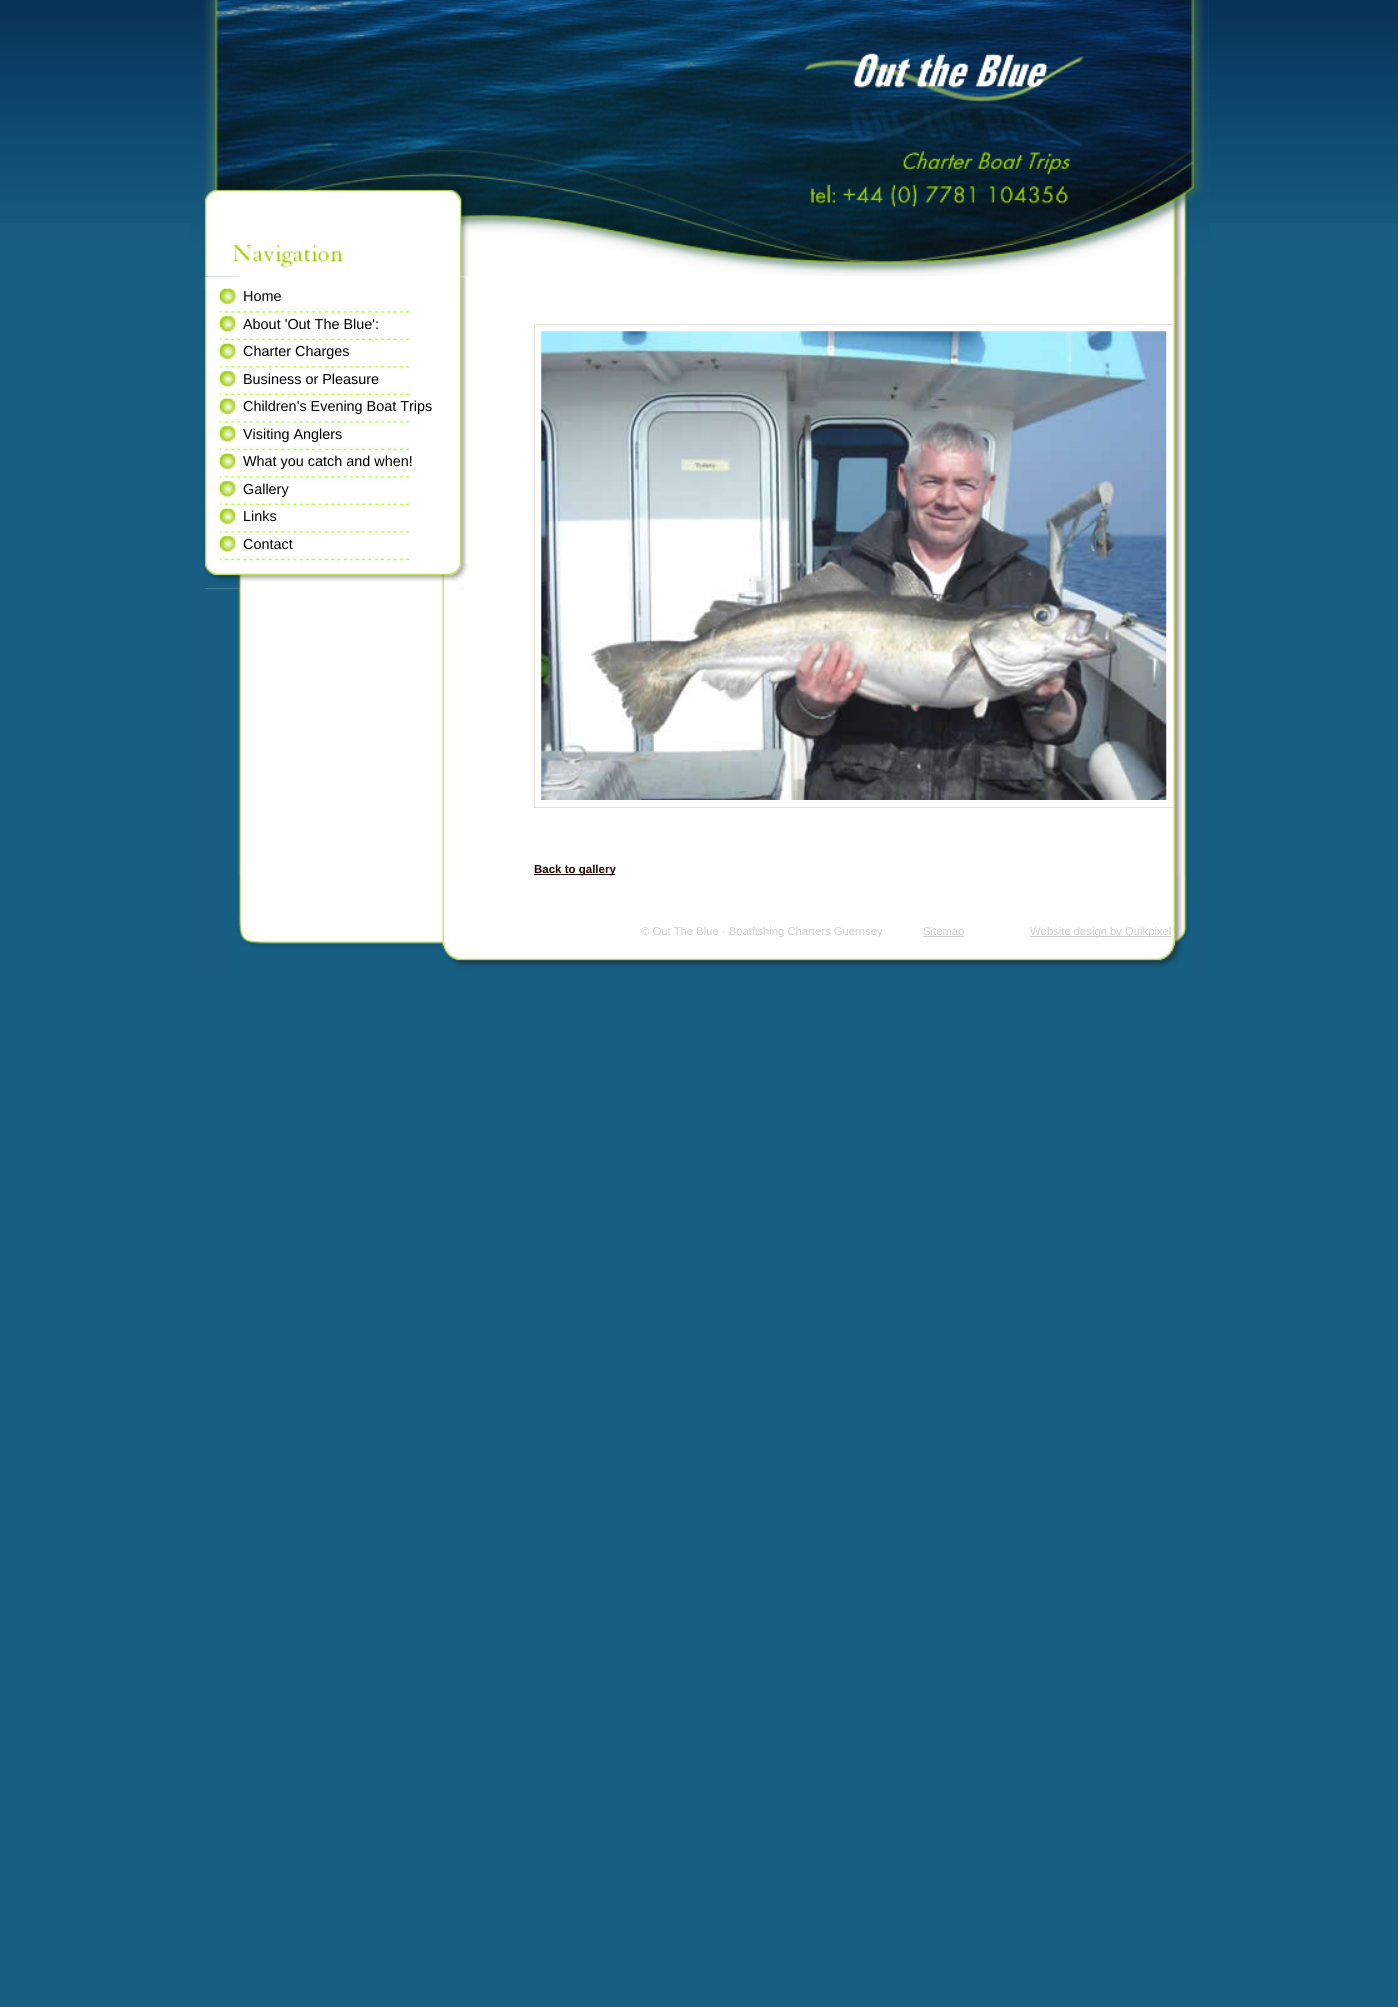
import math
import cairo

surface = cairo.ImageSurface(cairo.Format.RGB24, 1398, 2007)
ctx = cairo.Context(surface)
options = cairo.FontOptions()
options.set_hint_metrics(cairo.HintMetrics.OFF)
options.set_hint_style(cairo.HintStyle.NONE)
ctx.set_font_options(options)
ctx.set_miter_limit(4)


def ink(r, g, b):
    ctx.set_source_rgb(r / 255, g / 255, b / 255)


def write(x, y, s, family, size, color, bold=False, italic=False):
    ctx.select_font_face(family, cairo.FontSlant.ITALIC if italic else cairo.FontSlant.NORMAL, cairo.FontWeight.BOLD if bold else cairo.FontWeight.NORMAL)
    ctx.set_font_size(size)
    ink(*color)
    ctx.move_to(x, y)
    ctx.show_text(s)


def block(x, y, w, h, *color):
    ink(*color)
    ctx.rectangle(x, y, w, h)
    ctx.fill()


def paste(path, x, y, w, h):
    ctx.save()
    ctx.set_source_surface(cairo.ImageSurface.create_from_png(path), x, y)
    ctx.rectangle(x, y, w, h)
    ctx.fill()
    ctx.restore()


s1 = dict(family="Liberation Sans", size=14.4, color=(0, 0, 0))
s2 = dict(family="Liberation Sans", size=11.5, color=(31, 5, 6), bold=True)
s3 = dict(family="Liberation Sans", size=11.25, color=(204, 204, 204))

ink(22, 94, 130)
ctx.paint()
paste("pic1.png", 0, 0, 1398, 223)
paste("pic2.png", 190, 0, 1019, 975)
paste("pic3.png", 190, 0, 1019, 277)
paste("pic4.png", 204, 276, 263, 313)
paste("pic5.png", 202, 288, 260, 29)
write(243, 301, "Home", **s1)
paste("pic6.png", 202, 316, 260, 28)
write(243, 329, "About 'Out The Blue':", **s1)
paste("pic7.png", 202, 343, 260, 29)
write(243, 356, "Charter Charges", **s1)
paste("pic6.png", 202, 371, 260, 28)
write(243, 384, "Business or Pleasure", **s1)
paste("pic7.png", 202, 398, 260, 29)
write(243, 411, "Children's Evening Boat Trips", **s1)
paste("pic6.png", 202, 426, 260, 28)
write(243, 439, "Visiting Anglers", **s1)
paste("pic7.png", 202, 453, 260, 29)
write(243, 466, "What you catch and when!", **s1)
paste("pic6.png", 202, 481, 260, 28)
write(243, 494, "Gallery", **s1)
paste("pic7.png", 202, 508, 260, 29)
write(243, 521, "Links", **s1)
paste("pic6.png", 202, 536, 260, 28)
write(243, 549, "Contact", **s1)
paste("pic8.png", 204, 563, 264, 26)
block(1170, 325, 3, 482, 255, 255, 255)
ctx.rectangle(534.5, 324.5, 639, 483)
ink(227, 226, 223)
ctx.set_line_width(1)
ctx.stroke()
paste("pic9.png", 541, 331, 626, 469)
block(534, 874, 81, 1, 31, 5, 6)
paste("pic10.png", 230, 875, 960, 100)
write(534, 873, "Back to gallery", **s2)
write(641, 935, "© Out The Blue - Boatfishing Charters Guernsey", **s3)
block(923, 936, 41, 1, 204, 204, 204)
write(923, 935, "Sitemap", **s3)
block(1030, 936, 141, 1, 204, 204, 204)
write(1030, 935, "Website design by Quikpixel", **s3)
surface.write_to_png("screenshot.png")
